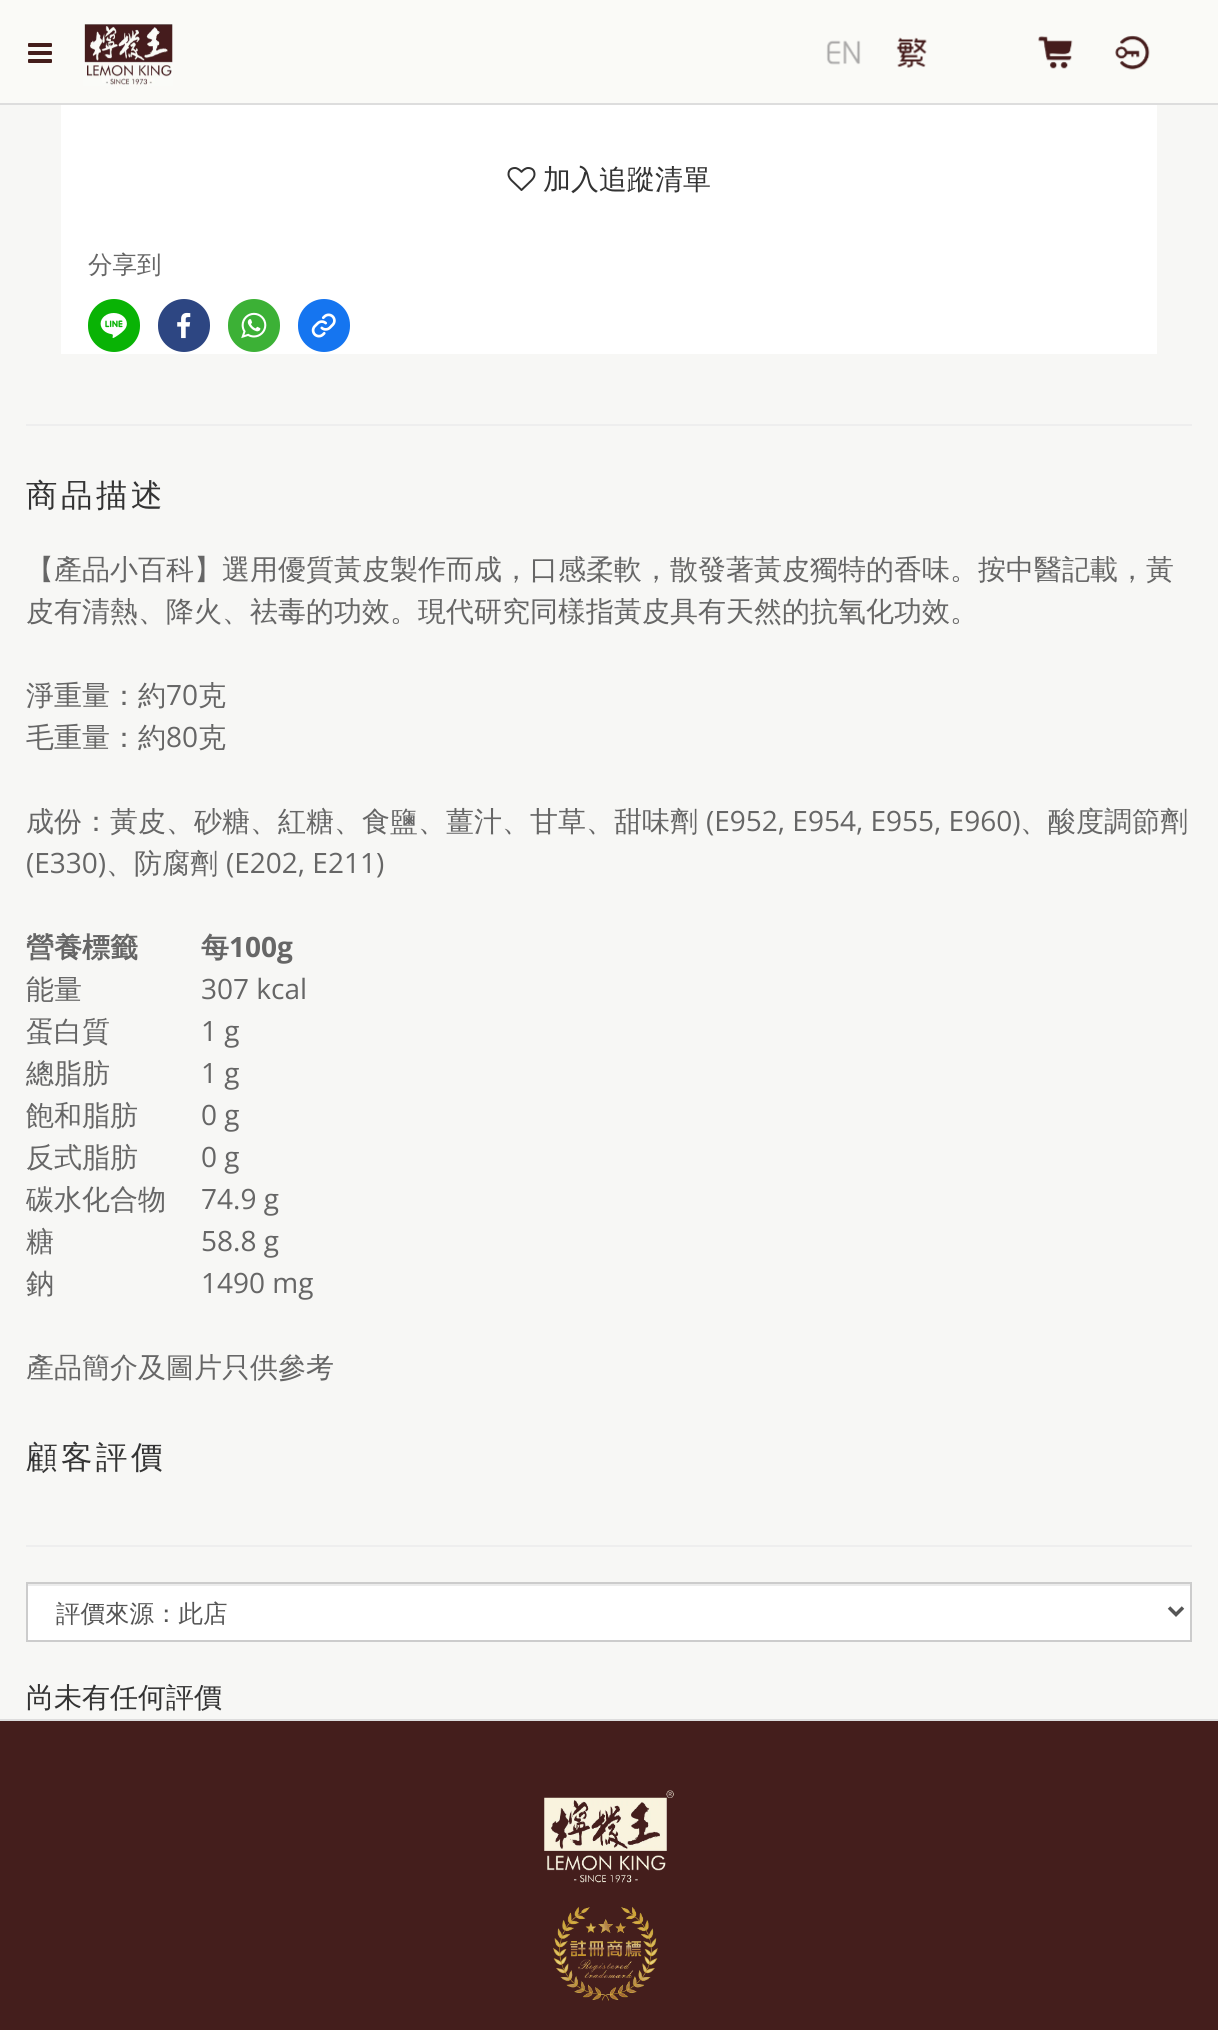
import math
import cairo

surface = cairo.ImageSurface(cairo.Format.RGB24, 1218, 2030)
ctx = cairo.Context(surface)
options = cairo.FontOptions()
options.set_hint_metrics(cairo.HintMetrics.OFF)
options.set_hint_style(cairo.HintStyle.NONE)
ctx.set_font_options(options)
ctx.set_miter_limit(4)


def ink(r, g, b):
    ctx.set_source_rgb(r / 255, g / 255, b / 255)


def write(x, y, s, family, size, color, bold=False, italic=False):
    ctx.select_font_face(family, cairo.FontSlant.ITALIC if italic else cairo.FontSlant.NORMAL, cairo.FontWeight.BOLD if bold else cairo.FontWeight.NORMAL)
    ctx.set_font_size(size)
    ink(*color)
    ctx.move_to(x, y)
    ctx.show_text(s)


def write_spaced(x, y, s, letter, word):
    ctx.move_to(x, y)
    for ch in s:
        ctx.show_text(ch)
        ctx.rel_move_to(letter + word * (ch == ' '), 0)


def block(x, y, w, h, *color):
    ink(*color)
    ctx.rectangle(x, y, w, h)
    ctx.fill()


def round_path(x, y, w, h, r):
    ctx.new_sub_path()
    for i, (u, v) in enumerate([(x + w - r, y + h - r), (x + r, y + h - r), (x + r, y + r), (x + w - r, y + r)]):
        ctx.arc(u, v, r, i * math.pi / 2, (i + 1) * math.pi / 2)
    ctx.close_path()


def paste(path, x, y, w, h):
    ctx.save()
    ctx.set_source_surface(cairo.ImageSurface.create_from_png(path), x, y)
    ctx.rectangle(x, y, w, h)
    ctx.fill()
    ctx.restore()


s1 = dict(family="WenQuanYi Zen Hei Medium", size=28, color=(51, 51, 51))
s2 = dict(family="WenQuanYi Zen Hei Medium", size=24.5, color=(102, 102, 102))
s3 = dict(family="WenQuanYi Zen Hei Medium", size=28, color=(102, 102, 102))
s4 = dict(family="Open Sans", size=28, color=(102, 102, 102))
s5 = dict(family="WenQuanYi Zen Hei", size=28, color=(102, 102, 102), bold=True)
s6 = dict(family="Open Sans", size=28, color=(102, 102, 102), bold=True)
s7 = dict(family="WenQuanYi Zen Hei Medium", size=24.5, color=(85, 85, 85))

ink(247, 247, 245)
ctx.paint()
block(0, 0, 1218, 103, 250, 250, 247)
paste("pic1.png", 28, 43, 24, 20)
paste("pic2.png", 826, 40, 35, 25)
paste("pic3.png", 896, 37, 31, 31)
paste("pic4.png", 1038, 36, 35, 33)
paste("pic5.png", 1115, 35, 35, 35)
block(0, 103, 1218, 2, 221, 221, 221)
paste("pic6.png", 83, 24, 90, 62)
block(61, 105, 1096, 249, 255, 255, 255)
paste("pic7.png", 507, 167, 29, 24)
write(543, 189, "加入追蹤清單", **s1)
write(88, 273, "分享到", **s2)
ink(9, 179, 5)
round_path(88, 299, 52, 53, 26)
ctx.fill()
paste("pic8.png", 100, 313, 27, 25)
ink(45, 70, 130)
round_path(158, 299, 52, 53, 26)
ctx.fill()
paste("pic9.png", 177, 312, 14, 27)
ink(60, 177, 54)
round_path(228, 299, 52, 53, 26)
ctx.fill()
paste("pic10.png", 241, 312, 26, 27)
ink(21, 117, 240)
round_path(298, 299, 52, 53, 26)
ctx.fill()
paste("pic11.png", 311, 313, 25, 25)
block(26, 424, 1166, 2, 238, 238, 238)
ctx.set_font_size(31.5)
ink(51, 51, 51)
write_spaced(26, 506, "商品描述", 3.5, 0)
write(26, 579, "【產品小百科】選用優質黃皮製作而成，口感柔軟，散發著黃皮獨特的香味。按中醫記載，黃", **s3)
write(26, 621, "皮有清熱、降火、祛毒的功效。現代研究同樣指黃皮具有天然的抗氧化功效。", **s3)
write(26, 705, "淨重量：約", **s3)
write(166, 705, "70", **s4)
write(198, 705, "克", **s3)
write(26, 747, "毛重量：約", **s3)
write(166, 747, "80", **s4)
write(198, 747, "克", **s3)
write(26, 831, "成份：黃皮、砂糖、紅糖、食鹽、薑汁、甘草、甜味劑", **s3)
write(706, 831, "(E952, E954, E955, E960)", **s4)
write(1020, 831, "、酸度調節劑", **s3)
write(26, 873, "(E330)", **s4)
write(106, 873, "、防腐劑", **s3)
write(226, 873, "(E202, E211)", **s4)
write(26, 957, "營養標籤", **s5)
write(201, 957, "每", **s5)
write(229, 957, "100g", **s6)
write(26, 999, "能量", **s3)
write(201, 999, "307 kcal", **s4)
write(26, 1041, "蛋白質", **s3)
write(201, 1041, "1 g", **s4)
write(26, 1083, "總脂肪", **s3)
write(201, 1083, "1 g", **s4)
write(26, 1125, "飽和脂肪", **s3)
write(201, 1125, "0 g", **s4)
write(26, 1167, "反式脂肪", **s3)
write(201, 1167, "0 g", **s4)
write(26, 1209, "碳水化合物", **s3)
write(201, 1209, "74.9 g", **s4)
write(26, 1251, "糖", **s3)
write(201, 1251, "58.8 g", **s4)
write(26, 1293, "鈉", **s3)
write(201, 1293, "1490 mg", **s4)
write(26, 1377, "產品簡介及圖片只供參考", **s3)
ctx.set_font_size(31.5)
ink(51, 51, 51)
write_spaced(26, 1468, "顧客評價", 3.5, 0)
block(26, 1545, 1166, 2, 238, 238, 238)
block(28, 1586, 1162, 54, 255, 255, 255)
block(28, 1584, 1162, 2, 236, 236, 236)
ctx.rectangle(27, 1583, 1164, 58)
ink(204, 204, 204)
ctx.stroke()
ctx.new_path()
ctx.move_to(1169, 1607.5)
ctx.line_to(1176, 1614.5)
ctx.line_to(1183, 1607.5)
ink(85, 85, 85)
ctx.set_line_width(3.5)
ctx.stroke()
write(56, 1622, "評價來源：此店", **s7)
write(26, 1707, "尚未有任何評價", **s1)
block(0, 1721, 1218, 309, 68, 30, 28)
block(0, 1719, 1218, 2, 221, 221, 221)
paste("pic12.png", 544, 1790, 130, 211)
surface.write_to_png("screenshot.png")
